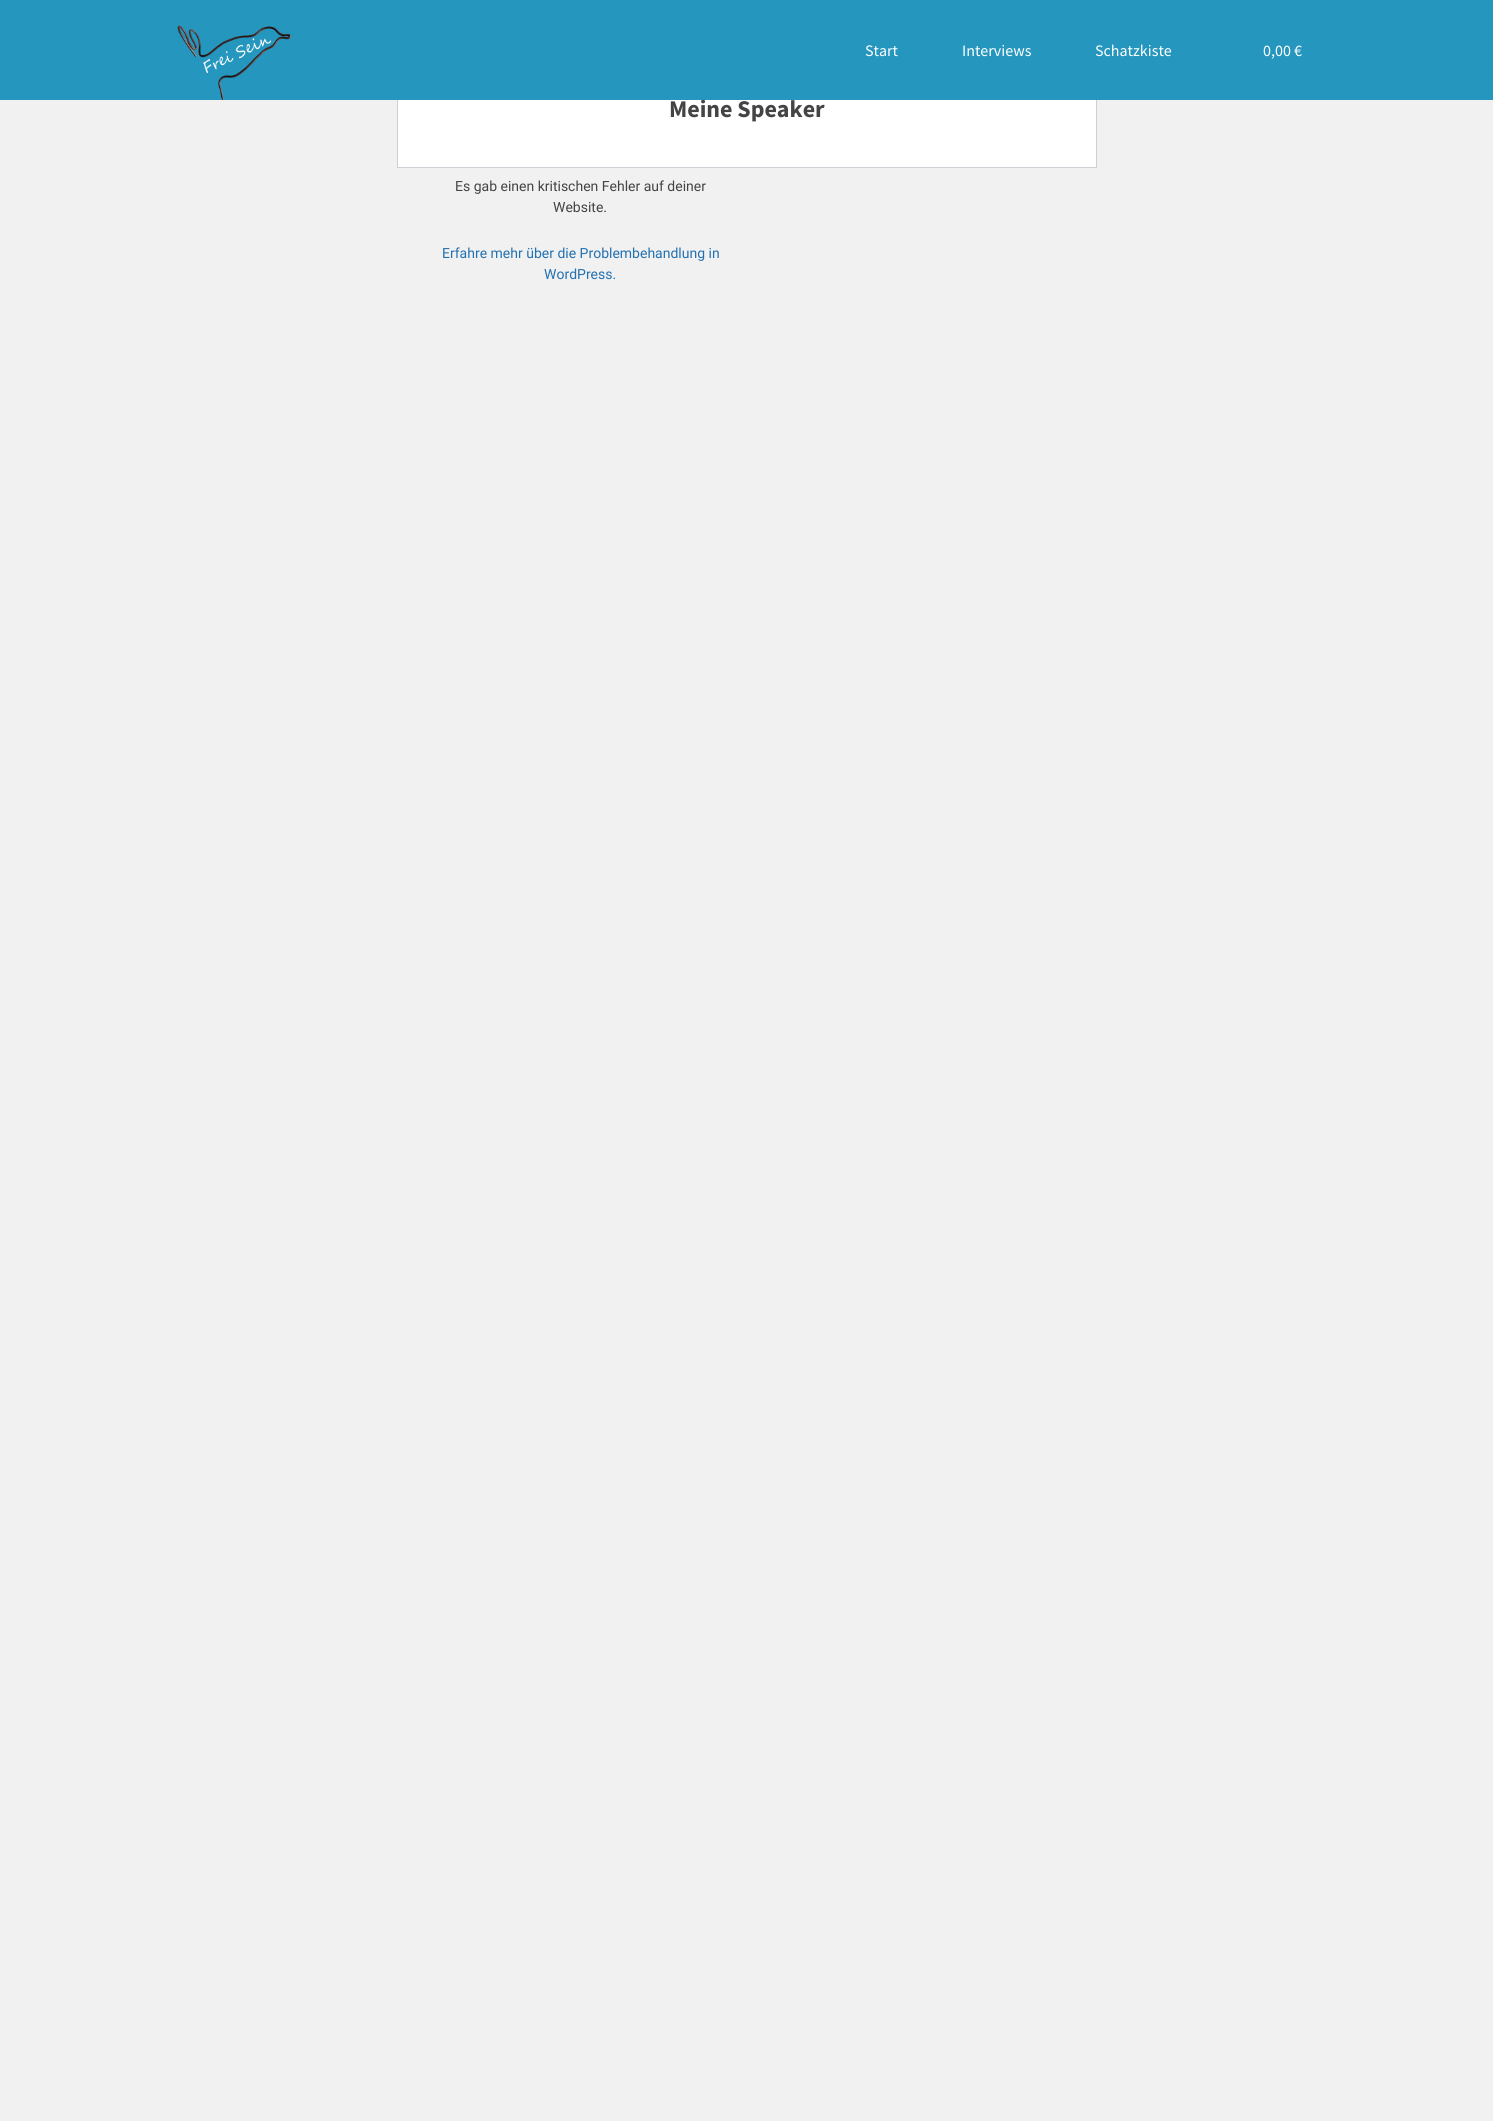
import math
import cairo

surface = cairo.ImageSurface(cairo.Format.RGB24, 1493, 2121)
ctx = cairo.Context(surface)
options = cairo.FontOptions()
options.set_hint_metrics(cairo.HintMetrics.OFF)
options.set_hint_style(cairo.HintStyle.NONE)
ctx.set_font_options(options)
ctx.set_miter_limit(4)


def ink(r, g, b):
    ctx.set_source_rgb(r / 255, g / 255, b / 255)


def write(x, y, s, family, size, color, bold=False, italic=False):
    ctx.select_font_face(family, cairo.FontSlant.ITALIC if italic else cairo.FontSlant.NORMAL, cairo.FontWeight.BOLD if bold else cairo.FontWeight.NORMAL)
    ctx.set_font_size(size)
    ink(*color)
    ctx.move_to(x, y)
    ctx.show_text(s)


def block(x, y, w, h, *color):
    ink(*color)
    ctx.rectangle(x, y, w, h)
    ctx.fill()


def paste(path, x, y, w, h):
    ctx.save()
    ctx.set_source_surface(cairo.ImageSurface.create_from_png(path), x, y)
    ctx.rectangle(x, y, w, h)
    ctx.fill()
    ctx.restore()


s1 = dict(family="Source Sans Pro", size=24, color=(68, 68, 68), bold=True)
s2 = dict(family="Source Sans Pro", size=16, color=(255, 255, 255))
s3 = dict(family="Roboto", size=14, color=(68, 68, 68))
s4 = dict(family="Roboto", size=14, color=(34, 113, 177))

ink(241, 241, 241)
ctx.paint()
block(398, 100, 698, 67, 255, 255, 255)
ctx.rectangle(397.5, 50.5, 699, 117)
ink(204, 208, 212)
ctx.set_line_width(1)
ctx.stroke()
write(669, 117, "Meine Speaker", **s1)
block(0, 0, 1493, 100, 37, 150, 190)
paste("pic1.png", 177, 25, 115, 75)
write(865, 56, "Start", **s2)
write(962, 56, "Interviews", **s2)
write(1095, 56, "Schatzkiste", **s2)
write(1263, 56, "0,00 €", **s2)
write(455, 191, "Es gab einen kritischen Fehler auf deiner", **s3)
write(553, 212, "Website.", **s3)
write(442, 258, "Erfahre mehr über die Problembehandlung in", **s4)
write(544, 279, "WordPress.", **s4)
surface.write_to_png("screenshot.png")
